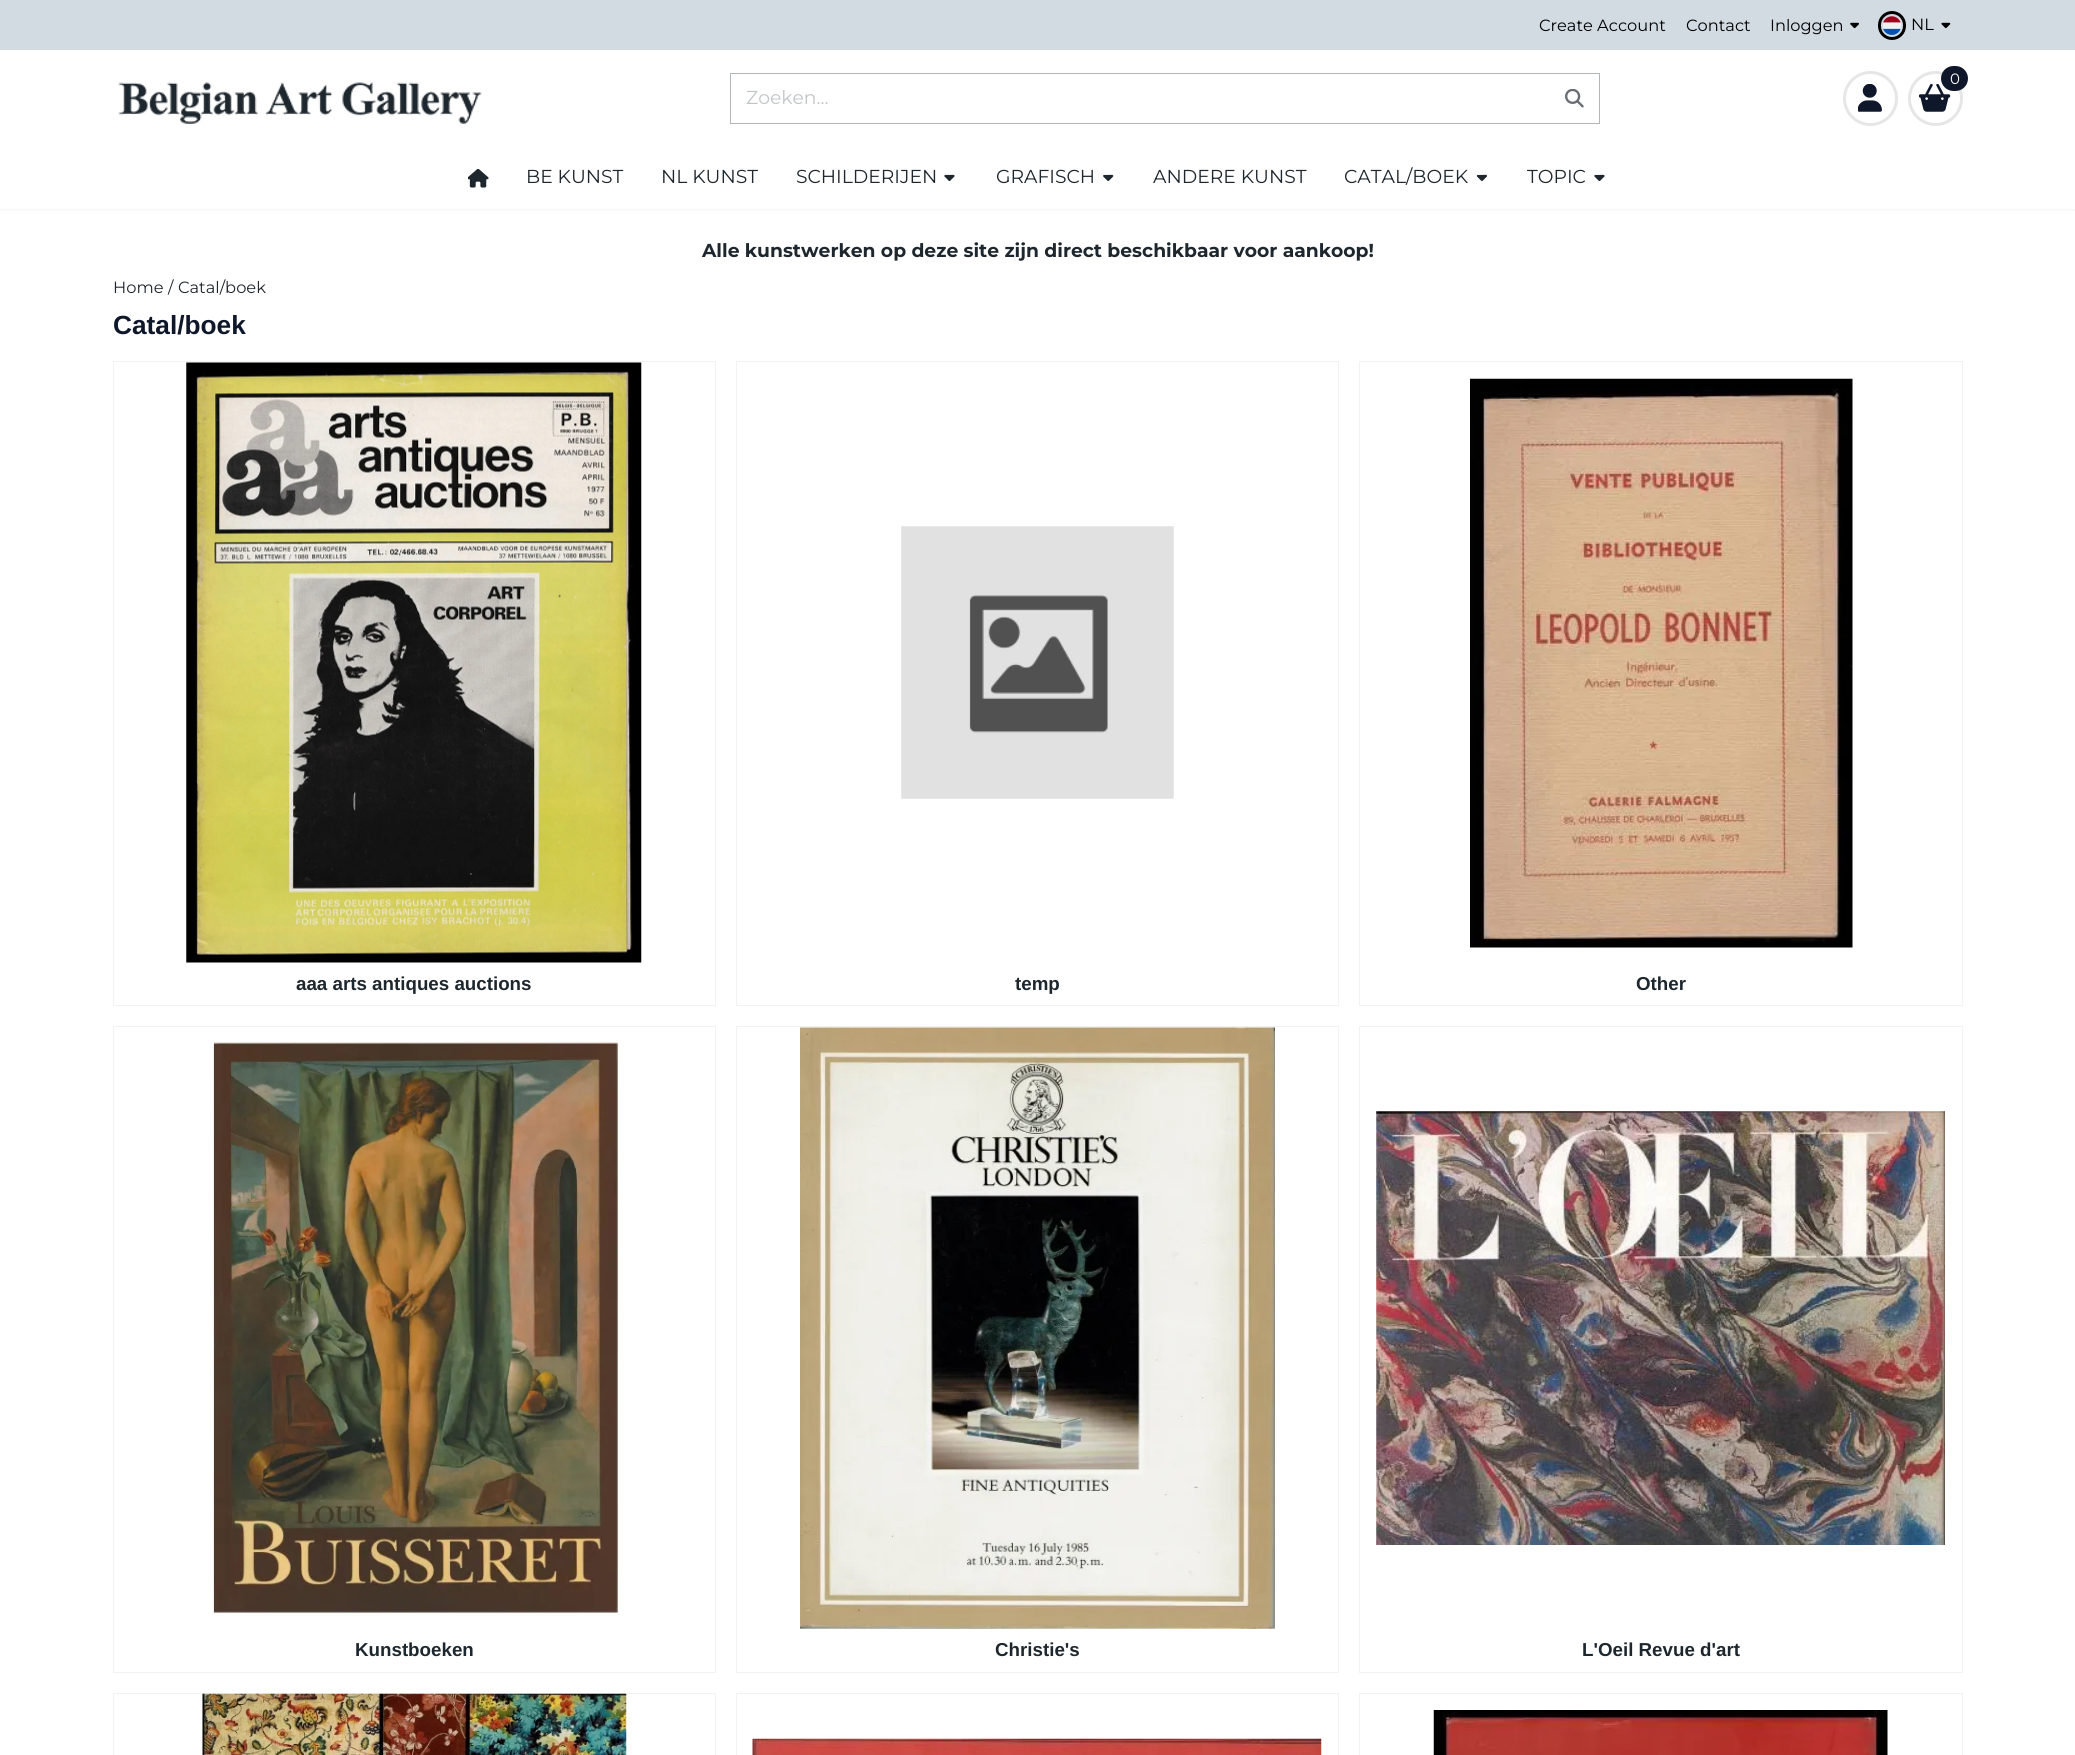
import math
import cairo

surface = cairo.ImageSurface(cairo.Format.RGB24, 2075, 1755)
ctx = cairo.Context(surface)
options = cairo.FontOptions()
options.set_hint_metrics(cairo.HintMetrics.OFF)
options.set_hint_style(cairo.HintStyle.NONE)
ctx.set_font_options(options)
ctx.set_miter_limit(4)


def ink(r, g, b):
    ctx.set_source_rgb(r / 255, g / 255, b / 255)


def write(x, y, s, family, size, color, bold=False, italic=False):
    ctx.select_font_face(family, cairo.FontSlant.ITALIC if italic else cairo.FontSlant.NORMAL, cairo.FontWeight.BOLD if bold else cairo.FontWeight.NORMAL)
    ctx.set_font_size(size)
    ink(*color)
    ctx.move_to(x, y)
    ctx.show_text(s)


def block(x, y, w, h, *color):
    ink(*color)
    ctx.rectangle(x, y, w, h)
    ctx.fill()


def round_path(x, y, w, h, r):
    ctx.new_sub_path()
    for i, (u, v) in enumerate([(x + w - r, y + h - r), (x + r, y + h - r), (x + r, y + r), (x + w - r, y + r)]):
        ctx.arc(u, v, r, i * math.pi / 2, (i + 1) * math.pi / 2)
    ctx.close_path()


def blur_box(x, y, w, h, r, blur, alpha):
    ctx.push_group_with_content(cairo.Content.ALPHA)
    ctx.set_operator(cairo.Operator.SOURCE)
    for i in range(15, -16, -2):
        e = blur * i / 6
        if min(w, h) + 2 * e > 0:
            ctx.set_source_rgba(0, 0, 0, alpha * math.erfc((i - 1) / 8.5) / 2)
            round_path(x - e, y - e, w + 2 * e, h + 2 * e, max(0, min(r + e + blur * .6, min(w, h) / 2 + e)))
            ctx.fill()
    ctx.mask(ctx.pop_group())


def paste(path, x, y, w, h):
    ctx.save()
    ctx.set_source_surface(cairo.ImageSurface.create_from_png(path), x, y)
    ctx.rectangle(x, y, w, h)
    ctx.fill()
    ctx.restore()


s1 = dict(family="Montserrat Thin", size=16.25, color=(0, 0, 0))
s2 = dict(family="Montserrat Thin", size=15, color=(255, 255, 255))
s3 = dict(family="Montserrat Thin", size=18.75, color=(194, 197, 199))
s4 = dict(family="Montserrat Thin", size=18.75, color=(30, 39, 46))
s5 = dict(family="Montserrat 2 Thin", size=18.75, color=(30, 39, 46))
s6 = dict(family="Montserrat Thin", size=16.25, color=(30, 39, 46))
s7 = dict(family="Arimo", size=26.25, color=(15, 23, 42), bold=True)
s8 = dict(family="Arimo", size=18.75, color=(30, 39, 46), bold=True)

ink(255, 255, 255)
ctx.paint()
block(0, 0, 2075, 50, 210, 218, 226)
write(1539, 31, "Create Account", **s1)
write(1686, 31, "Contact", **s1)
write(1770, 31, "Inloggen", **s1)
paste("pic1.png", 1850, 22, 9, 7)
round_path(1879.5, 12.5, 25, 26, 12.5)
ctx.set_line_width(3)
ctx.stroke()
paste("pic2.png", 1883, 16, 18, 19)
write(1911, 30, "NL", **s1)
paste("pic3.png", 1941, 22, 10, 7)
ctx.arc(1870.5, 98.5, 26, 0, 2 * math.pi)
ink(230, 230, 230)
ctx.stroke()
paste("pic4.png", 1858, 84, 24, 28)
ctx.arc(1935.5, 98.5, 26, 0, 2 * math.pi)
ctx.stroke()
paste("pic5.png", 1919, 84, 32, 28)
ink(15, 23, 42)
round_path(1941, 66, 27, 25, 12.5)
ctx.fill()
write(1950, 84, "0", **s2)
paste("pic6.png", 118, 82, 364, 42)
block(730, 73, 870, 1, 178, 182, 185)
block(730, 123, 823, 1, 178, 182, 185)
block(730, 73, 1, 51, 178, 182, 185)
write(746, 104, "Zoeken...", **s3)
block(1599, 73, 1, 51, 178, 182, 185)
block(1551, 123, 49, 1, 178, 182, 185)
paste("pic7.png", 1565, 89, 19, 19)
ink(0, 0, 0)
blur_box(0, 148, 2075, 62, 0, 1, 0.05)
block(0, 147, 2075, 62, 255, 255, 255)
paste("pic8.png", 468, 169, 21, 19)
write(526, 183, "BE KUNST", **s4)
write(661, 183, "NL KUNST", **s4)
write(796, 183, "SCHILDERIJEN", **s4)
paste("pic9.png", 944, 174, 11, 7)
write(996, 183, "GRAFISCH", **s4)
paste("pic10.png", 1103, 174, 11, 7)
write(1153, 183, "ANDERE KUNST", **s4)
write(1344, 183, "CATAL/BOEK", **s4)
paste("pic11.png", 1476, 174, 11, 7)
write(1527, 183, "TOPIC", **s4)
paste("pic9.png", 1594, 174, 11, 7)
write(702, 257, "Alle kunstwerken op deze site zijn direct beschikbaar voor aankoop!", **s5)
write(113, 293, "Home", **s6)
write(168, 293, "/", **s6)
write(178, 293, "Catal/boek", **s6)
write(113, 334, "Catal/boek", **s7)
ctx.rectangle(113.5, 361.5, 602, 644)
ink(242, 242, 242)
ctx.set_line_width(1)
ctx.stroke()
paste("pic12.png", 186, 362, 456, 601)
write(296, 990, "aaa arts antiques auctions", **s8)
ctx.rectangle(736.5, 361.5, 602, 644)
ink(242, 242, 242)
ctx.stroke()
paste("pic13.png", 901, 526, 273, 273)
write(1015, 990, "temp", **s8)
ctx.rectangle(1359.5, 361.5, 603, 644)
ink(242, 242, 242)
ctx.stroke()
paste("pic14.png", 1470, 378, 383, 570)
write(1636, 990, "Other", **s8)
ctx.rectangle(113.5, 1026.5, 602, 646)
ink(242, 242, 242)
ctx.stroke()
paste("pic15.png", 213, 1041, 406, 575)
write(355, 1656, "Kunstboeken", **s8)
ctx.rectangle(736.5, 1026.5, 602, 646)
ink(242, 242, 242)
ctx.stroke()
paste("pic16.png", 800, 1027, 475, 602)
write(995, 1656, "Christie's", **s8)
ctx.rectangle(1359.5, 1026.5, 603, 646)
ink(242, 242, 242)
ctx.stroke()
paste("pic17.png", 1376, 1111, 569, 434)
write(1582, 1656, "L'Oeil Revue d'art", **s8)
ctx.rectangle(113.5, 1693.5, 602, 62)
ink(242, 242, 242)
ctx.stroke()
paste("pic18.png", 202, 1693, 425, 62)
ctx.rectangle(736.5, 1693.5, 602, 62)
ctx.stroke()
paste("pic19.png", 752, 1738, 570, 17)
ctx.rectangle(1359.5, 1693.5, 603, 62)
ctx.stroke()
paste("pic20.png", 1433, 1710, 455, 45)
surface.write_to_png("screenshot.png")
